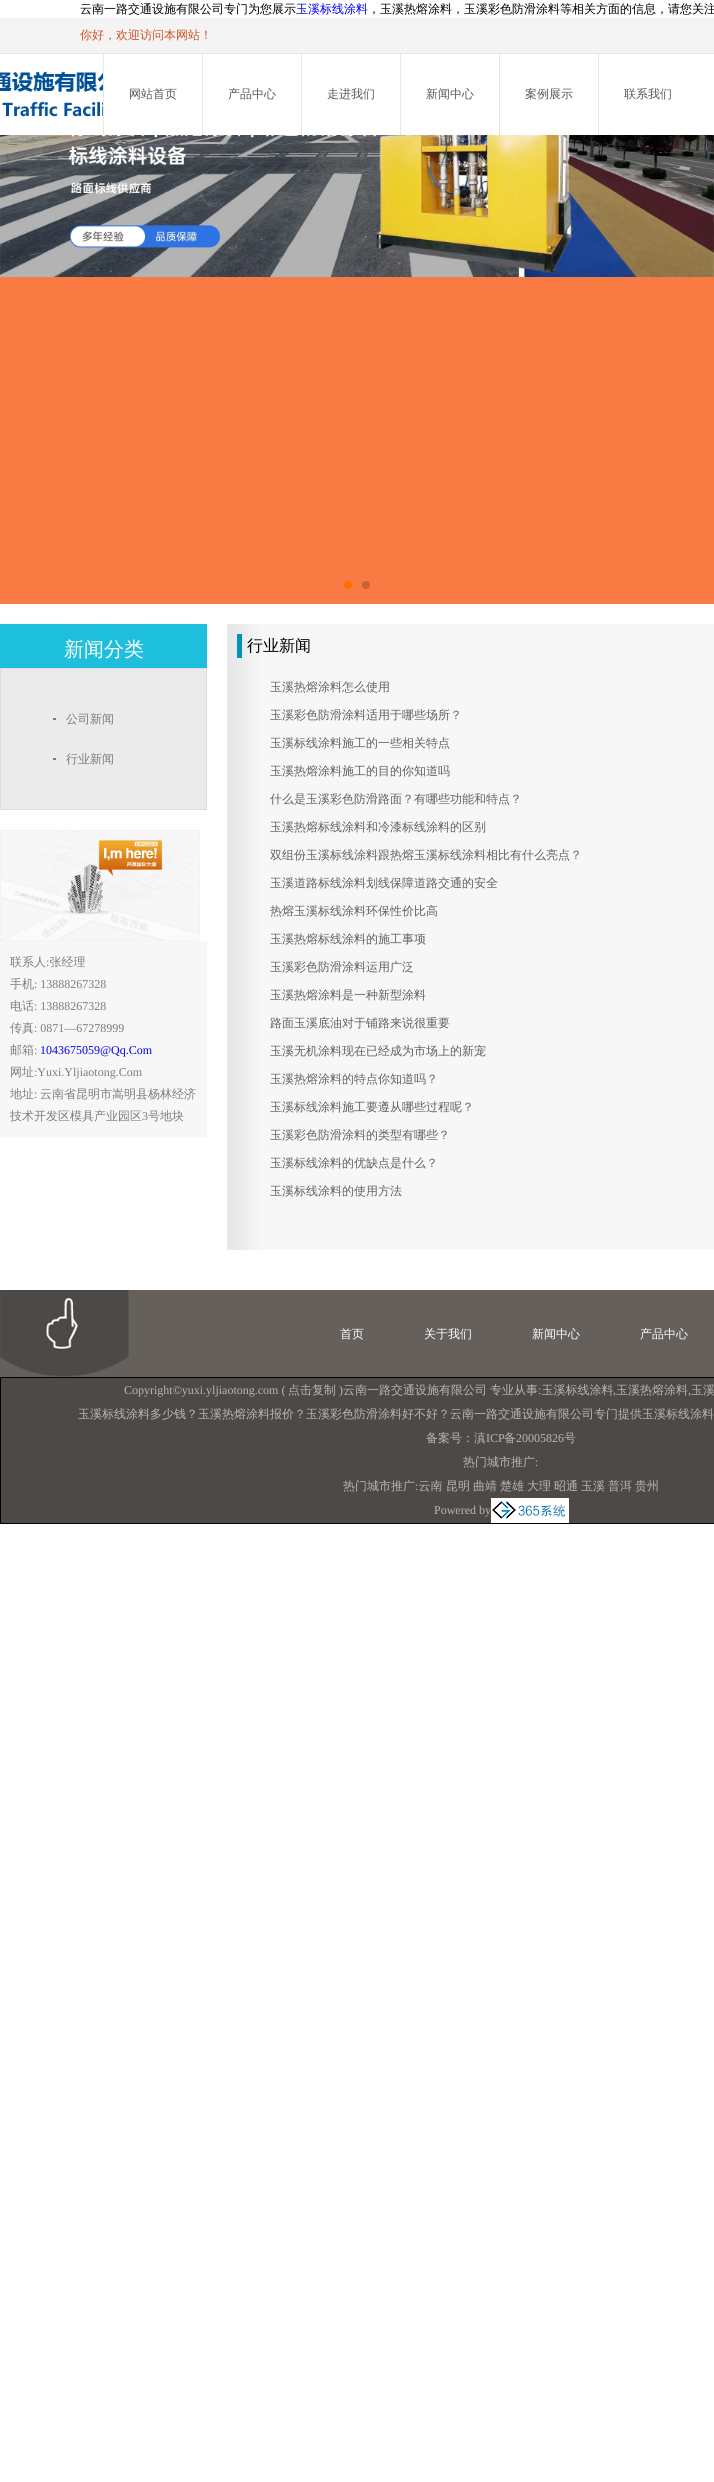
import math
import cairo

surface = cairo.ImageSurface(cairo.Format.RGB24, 714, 2482)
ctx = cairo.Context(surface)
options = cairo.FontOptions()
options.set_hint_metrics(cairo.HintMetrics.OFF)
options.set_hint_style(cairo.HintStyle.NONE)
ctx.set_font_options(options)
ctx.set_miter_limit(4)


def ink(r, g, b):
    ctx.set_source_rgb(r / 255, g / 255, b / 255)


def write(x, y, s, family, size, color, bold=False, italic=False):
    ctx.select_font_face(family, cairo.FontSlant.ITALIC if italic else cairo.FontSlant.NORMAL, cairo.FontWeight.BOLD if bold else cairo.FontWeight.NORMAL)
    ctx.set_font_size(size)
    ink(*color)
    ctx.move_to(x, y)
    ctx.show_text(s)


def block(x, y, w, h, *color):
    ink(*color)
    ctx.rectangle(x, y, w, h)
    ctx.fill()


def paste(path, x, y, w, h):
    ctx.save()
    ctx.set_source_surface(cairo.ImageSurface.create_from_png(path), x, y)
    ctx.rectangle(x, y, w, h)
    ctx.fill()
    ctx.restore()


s1 = dict(family="WenQuanYi Zen Hei Medium", size=12, color=(0, 0, 0))
s2 = dict(family="WenQuanYi Zen Hei Medium", size=12, color=(0, 0, 238))
s3 = dict(family="WenQuanYi Zen Hei Medium", size=12, color=(210, 79, 34))
s4 = dict(family="WenQuanYi Zen Hei Medium", size=12, color=(88, 88, 88))
s5 = dict(family="WenQuanYi Zen Hei Medium", size=20, color=(255, 255, 255))
s6 = dict(family="WenQuanYi Zen Hei Medium", size=12, color=(124, 124, 124))
s7 = dict(family="Liberation Serif", size=12, color=(124, 124, 124))
s8 = dict(family="Liberation Serif", size=12, color=(0, 0, 238))
s9 = dict(family="WenQuanYi Zen Hei Medium", size=16, color=(0, 0, 0))
s10 = dict(family="WenQuanYi Zen Hei Medium", size=12, color=(96, 96, 96))
s11 = dict(family="WenQuanYi Zen Hei Medium", size=12, color=(255, 255, 255))
s12 = dict(family="Liberation Serif", size=12, color=(185, 182, 182))
s13 = dict(family="WenQuanYi Zen Hei Medium", size=12, color=(185, 182, 182))

ink(255, 255, 255)
ctx.paint()
write(80, 13, "云南一路交通设施有限公司专门为您展示", **s1)
write(296, 13, "玉溪标线涂料", **s2)
write(368, 13, "，玉溪热熔涂料，玉溪彩色防滑涂料等相关方面的信息，请您关注", **s1)
block(0, 18, 714, 35, 244, 244, 244)
block(0, 53, 714, 1, 231, 231, 231)
write(80, 39, "你好，欢迎访问本网站！", **s3)
paste("pic1.png", 0, 71, 103, 46)
block(103, 54, 1, 81, 231, 231, 231)
write(129, 98, "网站首页", **s4)
block(202, 54, 1, 81, 231, 231, 231)
write(228, 98, "产品中心", **s4)
block(301, 54, 1, 81, 231, 231, 231)
write(327, 98, "走进我们", **s4)
block(400, 54, 1, 81, 231, 231, 231)
write(426, 98, "新闻中心", **s4)
block(499, 54, 1, 81, 231, 231, 231)
write(525, 98, "案例展示", **s4)
block(598, 54, 1, 81, 231, 231, 231)
write(624, 98, "联系我们", **s4)
block(0, 277, 714, 327, 249, 122, 67)
paste("pic2.png", 0, 135, 714, 142)
ink(255, 109, 0)
ctx.arc(348, 585, 4, 0, 2 * math.pi)
ctx.fill()
ink(199, 98, 54)
ctx.arc(366, 585, 4, 0, 2 * math.pi)
ctx.fill()
block(0, 624, 207, 44, 30, 191, 220)
write(64, 656, "新闻分类", **s5)
ink(235, 235, 235)
ctx.rectangle(0.5, 668.5, 206, 141)
ctx.fill_preserve()
ink(221, 221, 221)
ctx.set_line_width(1)
ctx.stroke()
paste("pic3.png", 51, 715, 5, 8)
write(66, 723, "公司新闻", **s6)
paste("pic3.png", 51, 755, 5, 8)
write(66, 763, "行业新闻", **s6)
paste("pic4.png", 0, 830, 200, 111)
block(0, 941, 207, 196, 247, 247, 247)
write(10, 966, "联系人 张经理", **s6)
write(46, 966, ":", **s7)
write(10, 988, "手机", **s6)
write(34, 988, ": 13888267328", **s7)
write(10, 1010, "电话", **s6)
write(34, 1010, ": 13888267328", **s7)
write(10, 1032, "传真", **s6)
write(34, 1032, ": 0871—67278999", **s7)
write(10, 1054, "邮箱", **s6)
write(34, 1054, ":", **s7)
write(40, 1054, "1043675059@Qq.Com", **s8)
write(10, 1076, "网址", **s6)
write(34, 1076, ":Yuxi.Yljiaotong.Com", **s7)
write(10, 1098, "地址", **s6)
write(34, 1098, ":", **s7)
write(40, 1098, "云南省昆明市嵩明县杨林经济", **s6)
write(10, 1120, "技术开发区模具产业园区", **s6)
write(142, 1120, "3", **s7)
write(148, 1120, "号地块", **s6)
paste("pic5.png", 227, 624, 487, 626)
block(237, 634, 5, 24, 2, 146, 183)
write(247, 651, "行业新闻", **s9)
write(270, 691, "玉溪热熔涂料怎么使用", **s10)
write(270, 719, "玉溪彩色防滑涂料适用于哪些场所？", **s10)
write(270, 747, "玉溪标线涂料施工的一些相关特点", **s10)
write(270, 775, "玉溪热熔涂料施工的目的你知道吗", **s10)
write(270, 803, "什么是玉溪彩色防滑路面？有哪些功能和特点？", **s10)
write(270, 831, "玉溪热熔标线涂料和冷漆标线涂料的区别", **s10)
write(270, 859, "双组份玉溪标线涂料跟热熔玉溪标线涂料相比有什么亮点？", **s10)
write(270, 887, "玉溪道路标线涂料划线保障道路交通的安全", **s10)
write(270, 915, "热熔玉溪标线涂料环保性价比高", **s10)
write(270, 943, "玉溪热熔标线涂料的施工事项", **s10)
write(270, 971, "玉溪彩色防滑涂料运用广泛", **s10)
write(270, 999, "玉溪热熔涂料是一种新型涂料", **s10)
write(270, 1027, "路面玉溪底油对于铺路来说很重要", **s10)
write(270, 1055, "玉溪无机涂料现在已经成为市场上的新宠", **s10)
write(270, 1083, "玉溪热熔涂料的特点你知道吗？", **s10)
write(270, 1111, "玉溪标线涂料施工要遵从哪些过程呢？", **s10)
write(270, 1139, "玉溪彩色防滑涂料的类型有哪些？", **s10)
write(270, 1167, "玉溪标线涂料的优缺点是什么？", **s10)
write(270, 1195, "玉溪标线涂料的使用方法", **s10)
block(129, 1290, 585, 87, 101, 96, 92)
paste("pic6.png", 0, 1290, 129, 87)
write(340, 1338, "首页", **s11)
write(424, 1338, "关于我们", **s11)
write(532, 1338, "新闻中心", **s11)
write(640, 1338, "产品中心", **s11)
ink(77, 73, 70)
ctx.rectangle(0.5, 1377.5, 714, 146)
ctx.fill_preserve()
ink(0, 0, 0)
ctx.stroke()
write(124, 1394, "Copyright©yuxi.yljiaotong.com (", **s12)
write(288, 1394, "点击复制", **s13)
write(339, 1394, ")", **s12)
write(343, 1394, "云南一路交通设施有限公司", **s13)
write(490, 1394, "专业从事 玉溪标线涂料", **s13)
write(616, 1394, "玉溪热熔涂料", **s13)
write(691, 1394, "玉溪", **s13)
write(538, 1394, ":", **s12)
write(613, 1394, ",", **s12)
write(688, 1394, ",", **s12)
write(78, 1418, "玉溪标线涂料多少钱？玉溪热熔涂料报价？玉溪彩色防滑涂料好不好？云南一路交通设施有限公司专门提供玉溪标线涂料", **s13)
write(426, 1442, "备案号：滇", **s13)
write(486, 1442, "ICP", **s12)
write(504, 1442, "备", **s13)
write(516, 1442, "20005826", **s12)
write(564, 1442, "号", **s13)
write(463, 1466, "热门城市推广", **s13)
write(535, 1466, ":", **s12)
write(343, 1490, "热门城市推广 云南", **s13)
write(446, 1490, "昆明", **s13)
write(473, 1490, "曲靖", **s13)
write(500, 1490, "楚雄", **s13)
write(527, 1490, "大理", **s13)
write(554, 1490, "昭通", **s13)
write(581, 1490, "玉溪", **s13)
write(608, 1490, "普洱", **s13)
write(635, 1490, "贵州", **s13)
write(415, 1490, ":", **s12)
write(434, 1514, "Powered by", **s12)
paste("pic7.png", 491, 1498, 78, 25)
surface.write_to_png("screenshot.png")
